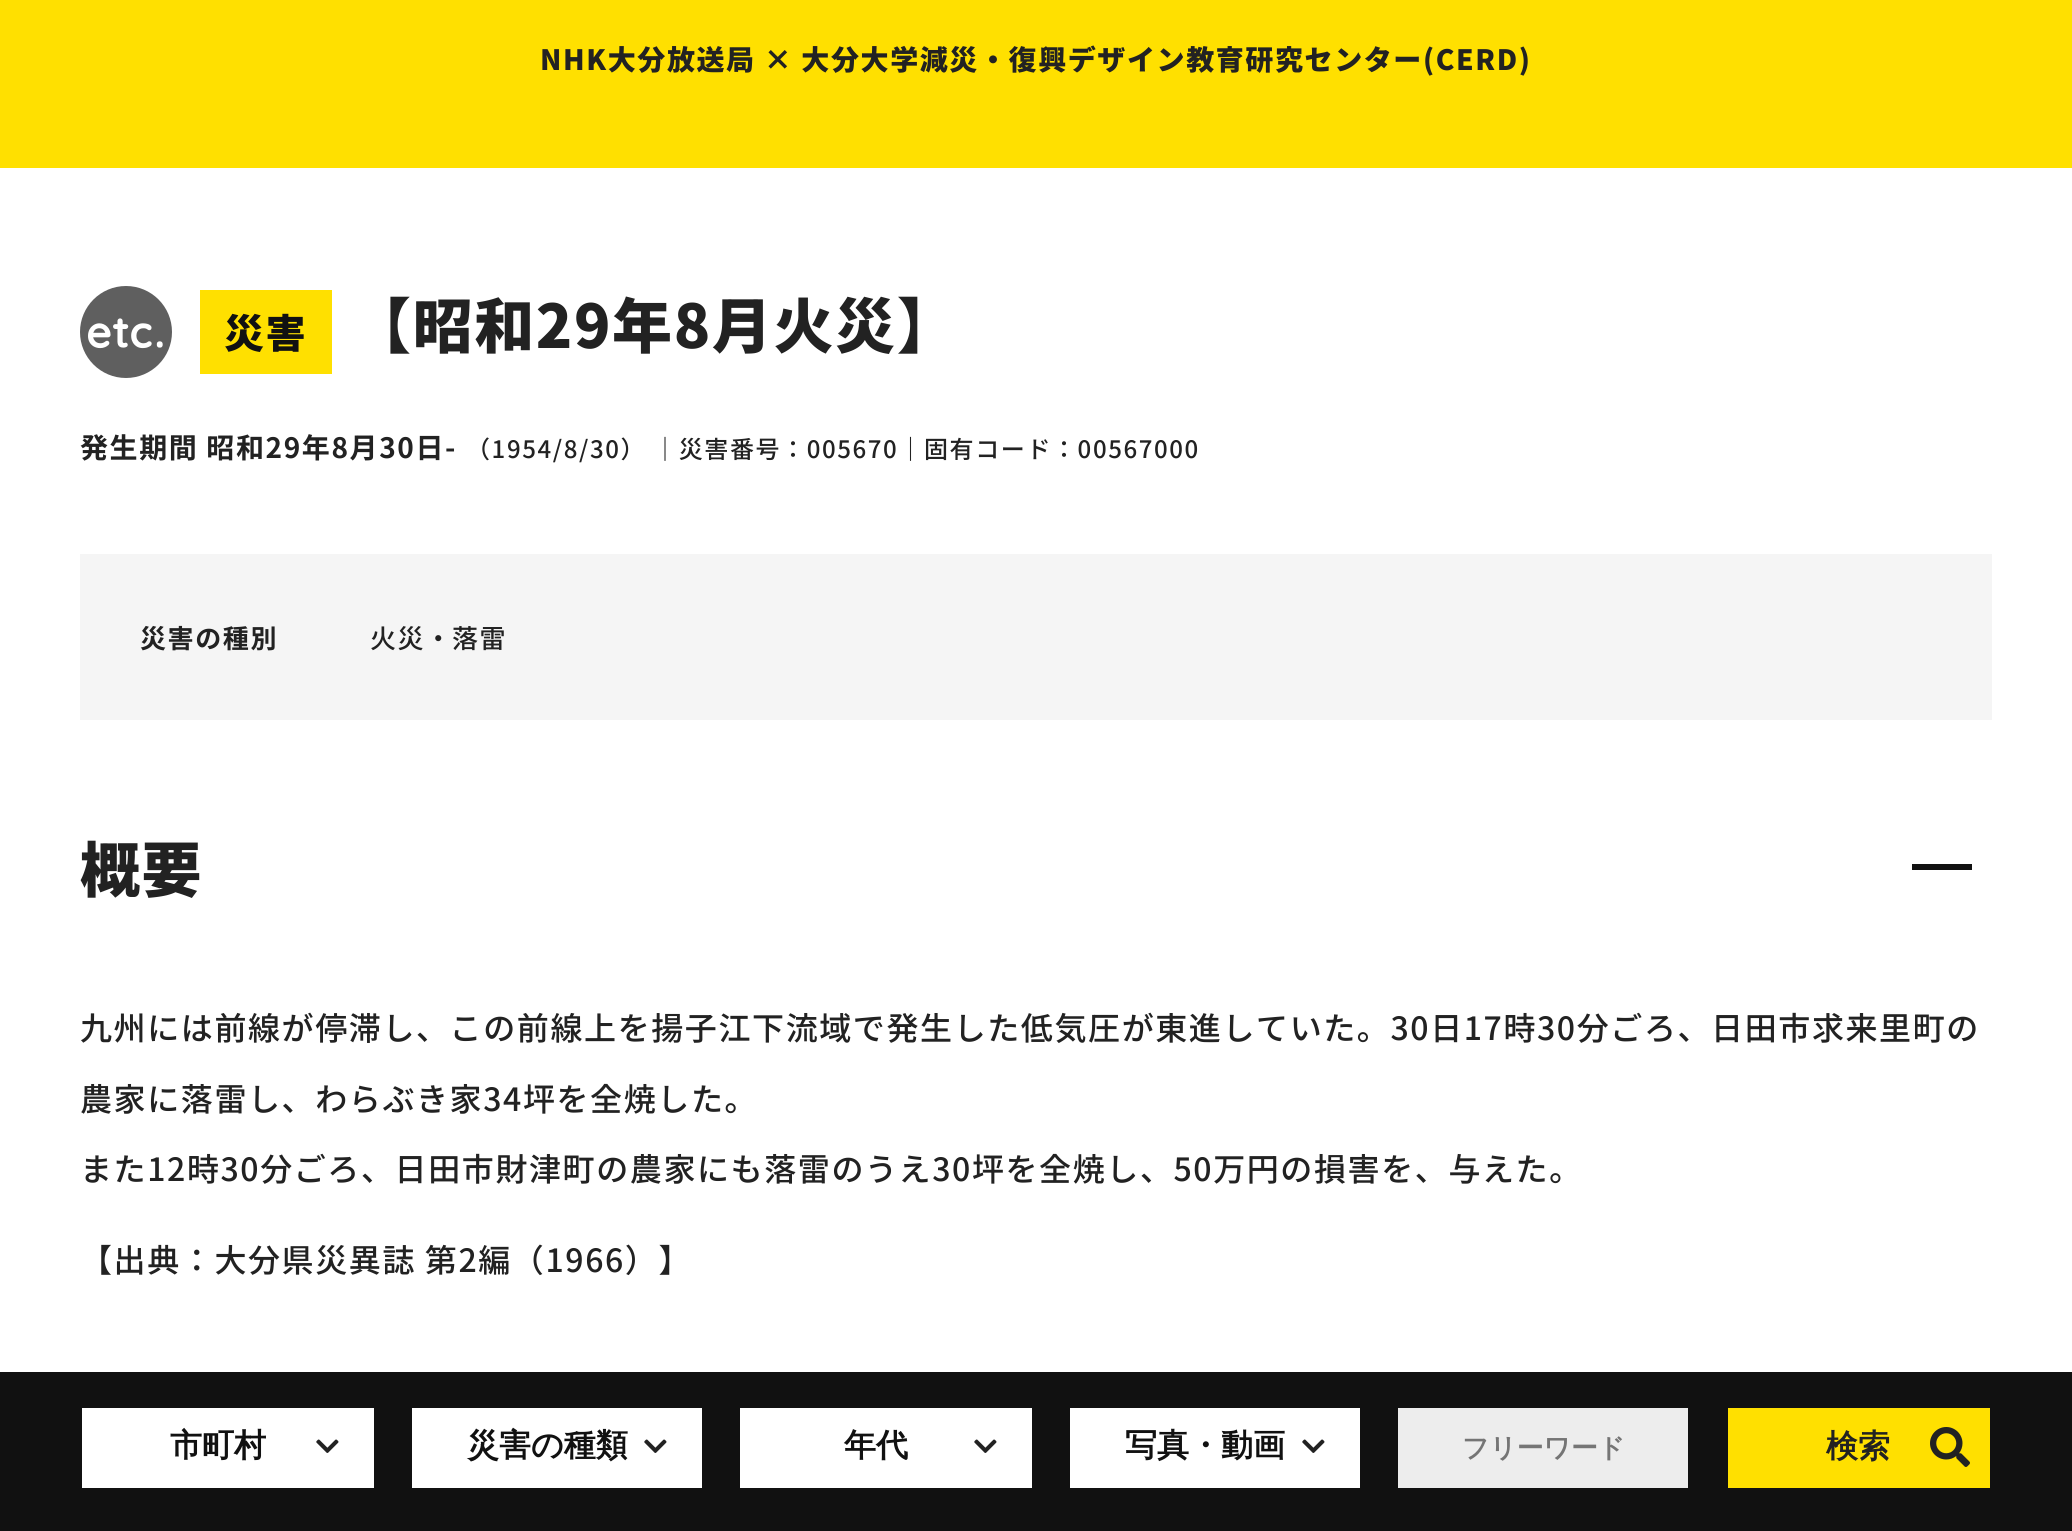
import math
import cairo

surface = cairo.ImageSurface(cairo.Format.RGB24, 2072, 1531)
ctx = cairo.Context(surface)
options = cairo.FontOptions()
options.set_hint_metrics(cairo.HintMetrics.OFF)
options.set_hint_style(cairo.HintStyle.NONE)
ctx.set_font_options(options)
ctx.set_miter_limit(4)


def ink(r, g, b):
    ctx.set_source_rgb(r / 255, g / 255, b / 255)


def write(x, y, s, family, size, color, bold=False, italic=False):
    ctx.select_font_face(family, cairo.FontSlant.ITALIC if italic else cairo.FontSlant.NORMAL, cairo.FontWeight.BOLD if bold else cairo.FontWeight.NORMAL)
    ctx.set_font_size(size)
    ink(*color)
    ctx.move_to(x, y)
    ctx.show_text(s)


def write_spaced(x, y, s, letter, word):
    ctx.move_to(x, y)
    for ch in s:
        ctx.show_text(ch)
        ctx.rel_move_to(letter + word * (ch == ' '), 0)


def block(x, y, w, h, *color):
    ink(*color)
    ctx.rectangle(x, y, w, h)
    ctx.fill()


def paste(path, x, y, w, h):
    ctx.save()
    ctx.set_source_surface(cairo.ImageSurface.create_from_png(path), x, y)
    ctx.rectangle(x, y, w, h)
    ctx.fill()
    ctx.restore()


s1 = dict(family="WenQuanYi Zen Hei", size=32, color=(17, 17, 17), bold=True)
s2 = dict(family="WenQuanYi Zen Hei", size=26.75, color=(117, 117, 117), bold=True)
s3 = dict(family="WenQuanYi Zen Hei", size=32, color=(34, 34, 34), bold=True)

ink(255, 255, 255)
ctx.paint()
block(0, 0, 2072, 168, 255, 224, 0)
ctx.select_font_face("Noto Sans JP Black")
ctx.set_font_size(28)
ink(34, 34, 34)
write_spaced(540, 70, "NHK大分放送局 × 大分大学減災・復興デザイン教育研究センター(CERD)", 1.6, 0)
ink(95, 95, 95)
ctx.new_path()
ctx.arc(126, 332, 46, 0, 2 * math.pi)
ctx.fill()
paste("pic1.png", 88, 318, 75, 31)
block(200, 290, 132, 84, 255, 224, 0)
ctx.set_font_size(40)
ink(17, 17, 17)
write_spaced(224, 348, "災害", 1.6, 0)
ctx.set_font_size(60)
ink(34, 34, 34)
write_spaced(351, 348, "【昭和29年8月火災】", 1.6, 0)
ctx.select_font_face("Noto Sans JP", cairo.FontSlant.NORMAL, cairo.FontWeight.BOLD)
ctx.set_font_size(28)
write_spaced(80, 458, "発生期間 昭和29年8月30日-", 1.6, 0)
ctx.select_font_face("Noto Sans JP Medium")
ctx.set_font_size(24)
write_spaced(466, 458, "（1954/8/30） ｜災害番号：005670｜固有コード：00567000", 1.6, 0)
block(80, 554, 1912, 166, 245, 245, 245)
ctx.select_font_face("Noto Sans JP", cairo.FontSlant.NORMAL, cairo.FontWeight.BOLD)
ctx.set_font_size(26)
ink(34, 34, 34)
write_spaced(140, 648, "災害の種別", 1.6, 0)
ctx.select_font_face("Noto Sans JP Medium")
write_spaced(370, 648, "火災・", 1.6, 0)
write_spaced(452, 648, "落雷", 1.6, 0)
ctx.select_font_face("Noto Sans JP Black")
ctx.set_font_size(60)
write_spaced(80, 892, "概要", 1.6, 0)
block(1912, 864, 60, 6, 17, 17, 17)
ctx.select_font_face("Noto Sans JP Medium")
ctx.set_font_size(32)
ink(34, 34, 34)
write_spaced(80, 1040, "九州には前線が停滞し、この前線上を揚子江下流域で発生した低気圧が東進していた。30日17時30分ごろ、日田市求来里町の", 1.6, 0)
write_spaced(80, 1111, "農家に落雷し、わらぶき家34坪を全焼した。", 1.6, 0)
write_spaced(80, 1181, "また12時30分ごろ、日田市財津町の農家にも落雷のうえ30坪を全焼し、50万円の損害を、与えた。", 1.6, 0)
write_spaced(80, 1272, "【出典：大分県災異誌 第2編（1966）】", 1.6, 0)
block(0, 1372, 2072, 159, 17, 17, 17)
block(82, 1408, 292, 80, 255, 255, 255)
write(170, 1456, "市町村", **s1)
paste("pic2.png", 316, 1439, 23, 14)
block(412, 1408, 290, 80, 255, 255, 255)
write(467, 1456, "災害の種類", **s1)
paste("pic2.png", 644, 1439, 23, 14)
block(740, 1408, 292, 80, 255, 255, 255)
write(844, 1456, "年代", **s1)
paste("pic2.png", 974, 1439, 23, 14)
block(1070, 1408, 290, 80, 255, 255, 255)
write(1125, 1456, "写真・動画", **s1)
paste("pic2.png", 1302, 1439, 23, 14)
block(1398, 1408, 290, 80, 237, 237, 237)
write(1462, 1457, "フリーワード", **s2)
block(1728, 1408, 262, 80, 255, 224, 0)
write(1826, 1457, "検索", **s3)
paste("pic3.png", 1930, 1427, 40, 40)
surface.write_to_png("screenshot.png")
